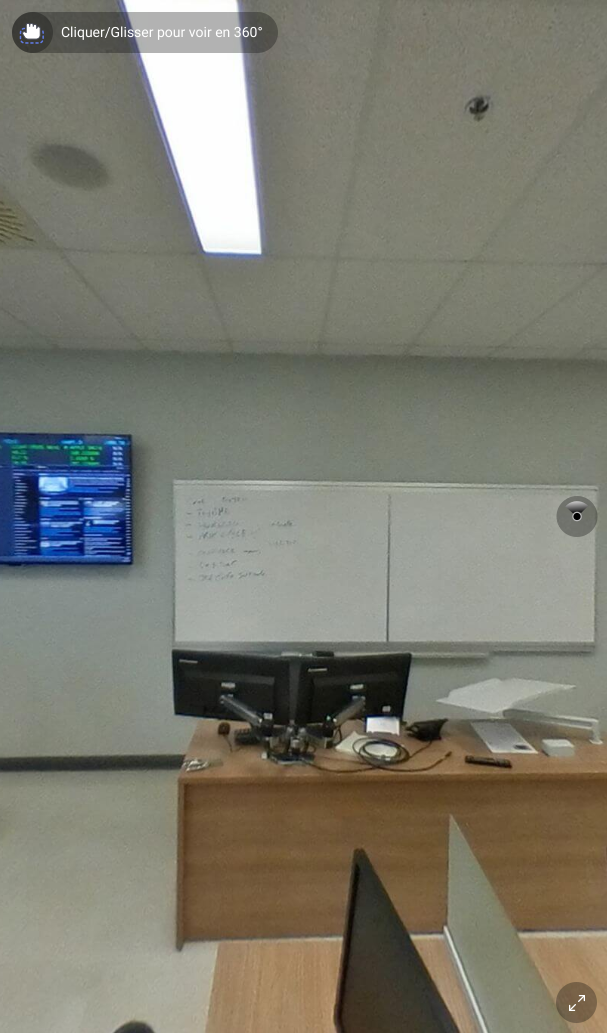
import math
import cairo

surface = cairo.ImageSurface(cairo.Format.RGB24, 607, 1033)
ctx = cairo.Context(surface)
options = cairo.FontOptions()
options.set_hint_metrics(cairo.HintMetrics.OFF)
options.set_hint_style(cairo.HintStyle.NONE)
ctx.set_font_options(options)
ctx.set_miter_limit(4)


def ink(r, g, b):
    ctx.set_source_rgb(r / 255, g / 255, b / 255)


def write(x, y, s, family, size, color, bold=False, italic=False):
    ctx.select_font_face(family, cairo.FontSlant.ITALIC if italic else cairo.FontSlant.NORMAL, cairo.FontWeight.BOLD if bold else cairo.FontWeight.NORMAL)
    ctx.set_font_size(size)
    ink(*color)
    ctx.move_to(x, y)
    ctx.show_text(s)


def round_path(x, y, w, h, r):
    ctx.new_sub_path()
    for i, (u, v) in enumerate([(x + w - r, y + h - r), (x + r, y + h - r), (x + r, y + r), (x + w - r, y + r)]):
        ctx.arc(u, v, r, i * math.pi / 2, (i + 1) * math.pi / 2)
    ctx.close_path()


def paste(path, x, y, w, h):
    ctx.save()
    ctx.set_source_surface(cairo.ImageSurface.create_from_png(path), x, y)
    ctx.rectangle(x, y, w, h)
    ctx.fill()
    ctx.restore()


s1 = dict(family="Roboto", size=14, color=(255, 255, 255))

ink(255, 255, 255)
ctx.paint()
paste("pic1.png", 0, 0, 607, 1033)
ctx.set_source_rgba(0, 0, 0, 0.3)
round_path(12, 12, 266, 41, 20.5)
ctx.fill()
ctx.arc(32.5, 32.5, 20.5, 0, 2 * math.pi)
ctx.fill()
paste("pic2.png", 19, 23, 25, 21)
write(61, 37, "Cliquer/Glisser pour voir en 360°", **s1)
paste("pic3.png", 556, 496, 42, 41)
ctx.set_source_rgba(0, 0, 0, 0.3)
ctx.arc(576.5, 1002.5, 20.5, 0, 2 * math.pi)
ctx.fill()
paste("pic4.png", 569, 995, 16, 16)
surface.write_to_png("screenshot.png")
